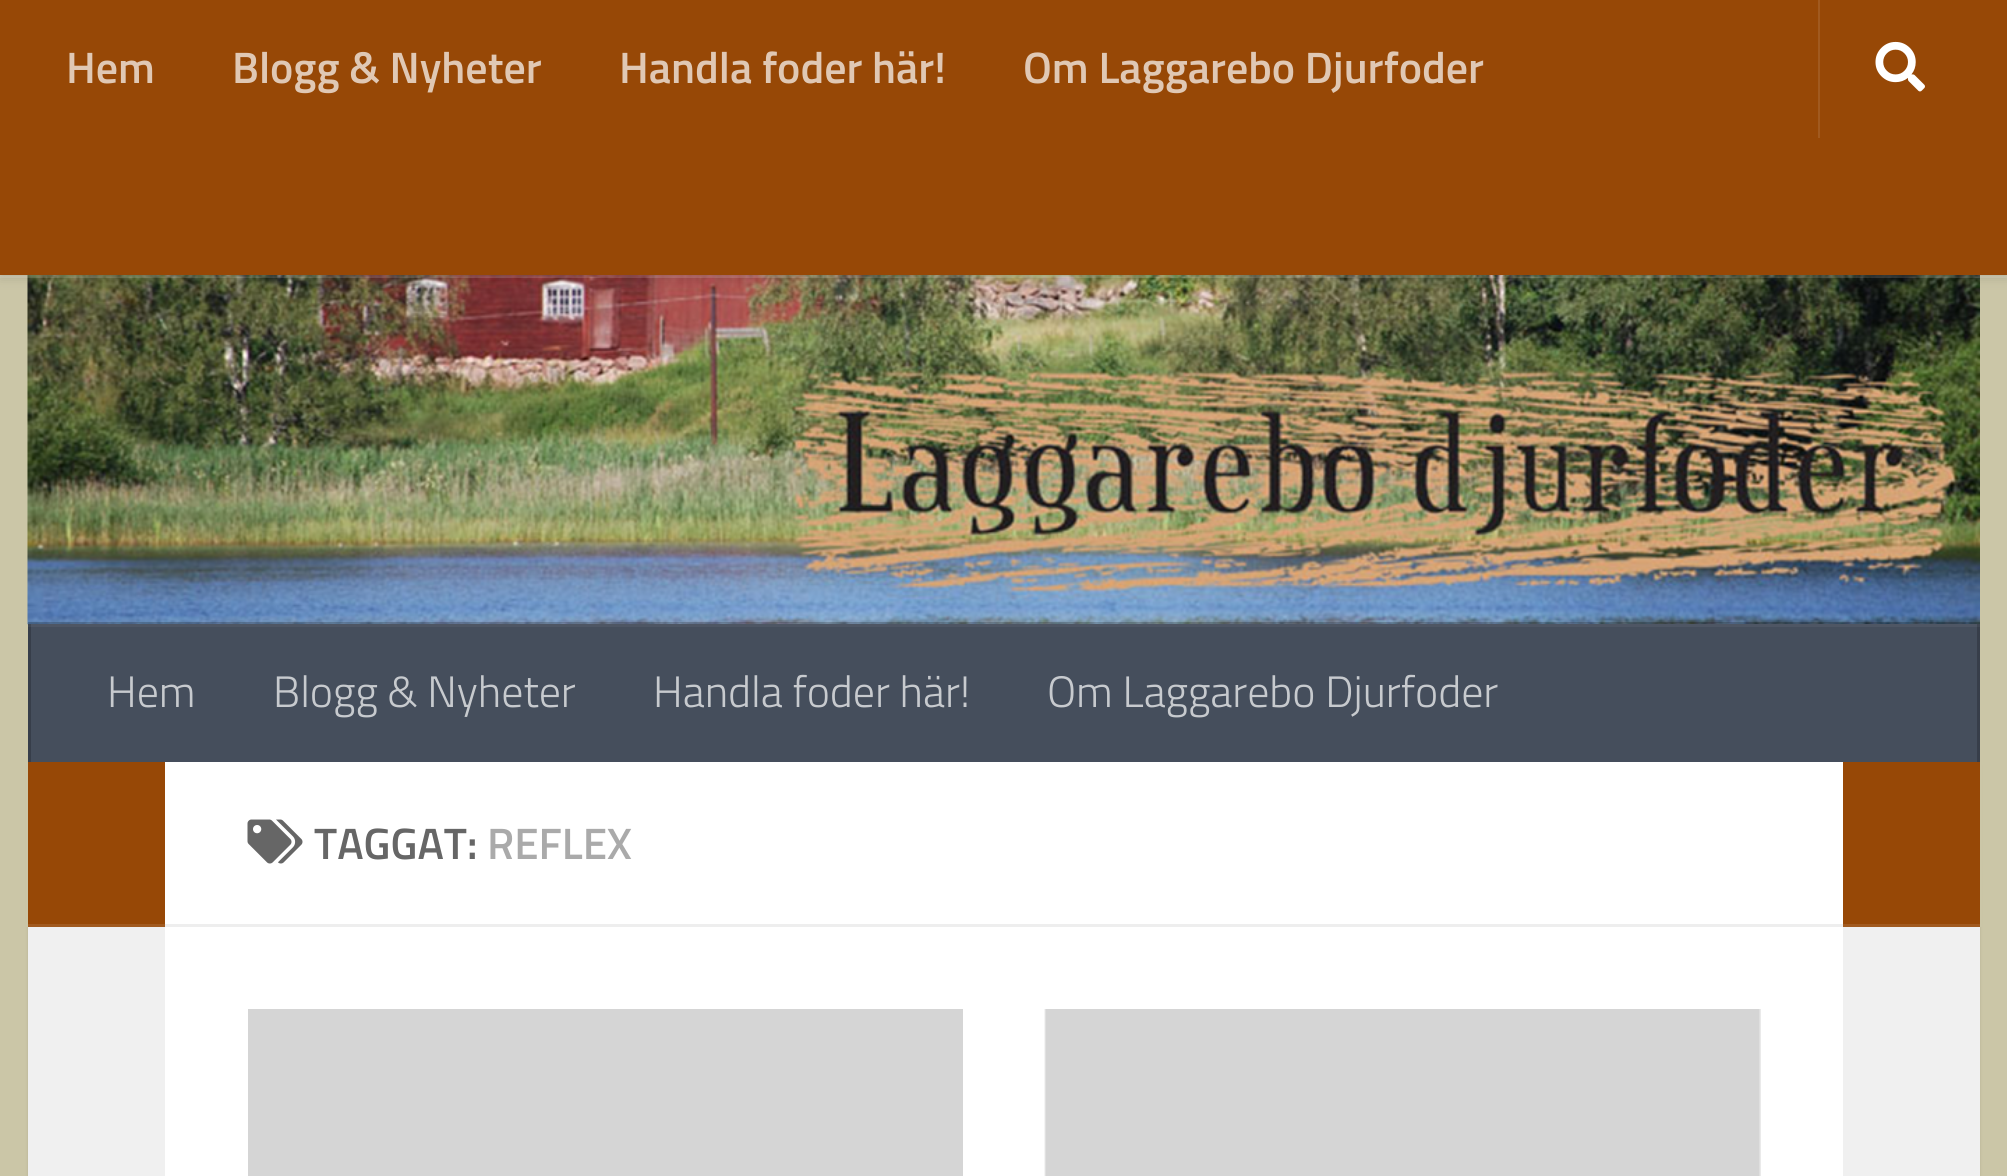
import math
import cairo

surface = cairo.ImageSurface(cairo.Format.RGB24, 2007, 1176)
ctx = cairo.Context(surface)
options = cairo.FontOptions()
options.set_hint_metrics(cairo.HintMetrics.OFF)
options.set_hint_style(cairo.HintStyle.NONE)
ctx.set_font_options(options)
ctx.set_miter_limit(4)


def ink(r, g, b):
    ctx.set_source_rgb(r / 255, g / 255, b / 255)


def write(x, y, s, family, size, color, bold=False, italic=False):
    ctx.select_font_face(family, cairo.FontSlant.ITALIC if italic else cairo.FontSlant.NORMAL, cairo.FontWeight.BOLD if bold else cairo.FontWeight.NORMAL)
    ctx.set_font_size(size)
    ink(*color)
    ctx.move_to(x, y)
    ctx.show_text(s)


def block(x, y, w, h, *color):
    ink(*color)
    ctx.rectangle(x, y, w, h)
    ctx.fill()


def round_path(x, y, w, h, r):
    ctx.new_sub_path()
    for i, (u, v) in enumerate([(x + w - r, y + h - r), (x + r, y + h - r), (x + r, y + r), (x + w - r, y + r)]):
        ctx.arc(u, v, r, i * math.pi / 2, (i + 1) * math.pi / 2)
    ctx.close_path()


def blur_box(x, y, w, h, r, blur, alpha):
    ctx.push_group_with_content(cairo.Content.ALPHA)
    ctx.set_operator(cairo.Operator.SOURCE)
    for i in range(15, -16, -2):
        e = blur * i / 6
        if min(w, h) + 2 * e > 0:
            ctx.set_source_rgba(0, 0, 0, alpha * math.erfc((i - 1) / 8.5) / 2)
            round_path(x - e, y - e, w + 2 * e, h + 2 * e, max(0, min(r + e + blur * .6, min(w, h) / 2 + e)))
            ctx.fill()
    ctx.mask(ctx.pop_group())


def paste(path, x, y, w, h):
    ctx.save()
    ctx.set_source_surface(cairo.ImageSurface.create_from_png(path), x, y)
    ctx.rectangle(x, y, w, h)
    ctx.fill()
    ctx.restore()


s1 = dict(family="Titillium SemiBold", size=44, color=(224, 200, 180))
s2 = dict(family="Titillium Light", size=44, color=(199, 202, 206))
s3 = dict(family="Titillium SemiBold", size=44, color=(102, 102, 102))
s4 = dict(family="Titillium SemiBold", size=44, color=(170, 170, 170))

ink(203, 198, 167)
ctx.paint()
ink(0, 0, 0)
blur_box(28, 765, 1952, 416, 0, 1.5, 0.1)
block(26, 763, 1956, 164, 203, 198, 167)
paste("pic2.png", 27, 275, 1953, 350)
ctx.set_source_rgba(1, 1, 1, 0.15)
ctx.new_path()
ctx.move_to(0, 275)
ctx.line_to(0, 278)
ctx.line_to(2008, 278)
ctx.line_to(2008, 3)
ctx.line_to(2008, 275)
ctx.close_path()
ctx.fill()
ink(0, 0, 0)
blur_box(0, 0, 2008, 275, 0, 7, 0.2)
block(0, 0, 2007, 275, 151, 72, 6)
write(66, 83, "Hem", **s1)
write(232, 83, "Blogg & Nyheter", **s1)
write(619, 83, "Handla foder här!", **s1)
write(1023, 83, "Om Laggarebo Djurfoder", **s1)
ink(161, 90, 31)
ctx.new_path()
ctx.move_to(1818, 0)
ctx.line_to(1818, 138)
ctx.line_to(1977, 138)
ctx.line_to(1820, 138)
ctx.line_to(1820, 0)
ctx.close_path()
ctx.fill()
paste("pic1.png", 1875, 41, 50, 51)
ctx.set_source_rgba(0, 0, 0, 0.2)
ctx.rectangle(28, 622, 1952, 2)
ctx.fill()
block(31, 624, 1946, 138, 69, 78, 92)
block(1977, 624, 3, 138, 55, 62, 74)
block(28, 624, 3, 138, 55, 62, 74)
ctx.set_source_rgba(1, 1, 1, 0.05)
ctx.rectangle(28, 624, 1952, 3)
ctx.fill()
write(107, 707, "Hem", **s2)
write(273, 707, "Blogg & Nyheter", **s2)
write(653, 707, "Handla foder här!", **s2)
write(1047, 707, "Om Laggarebo Djurfoder", **s2)
block(165, 762, 1678, 414, 255, 255, 255)
block(28, 762, 137, 162, 151, 72, 6)
block(28, 924, 137, 3, 161, 90, 31)
block(165, 924, 1678, 3, 238, 238, 238)
paste("pic3.png", 247, 819, 56, 45)
write(314, 859, "TAGGAT:", **s3)
write(487, 859, "REFLEX", **s4)
block(248, 1009, 715, 167, 213, 213, 213)
paste("pic4.png", 1044, 1009, 717, 167)
block(1843, 762, 137, 162, 151, 72, 6)
block(1843, 924, 137, 3, 161, 90, 31)
block(28, 927, 137, 249, 240, 240, 240)
block(1843, 927, 137, 249, 240, 240, 240)
surface.write_to_png("screenshot.png")
